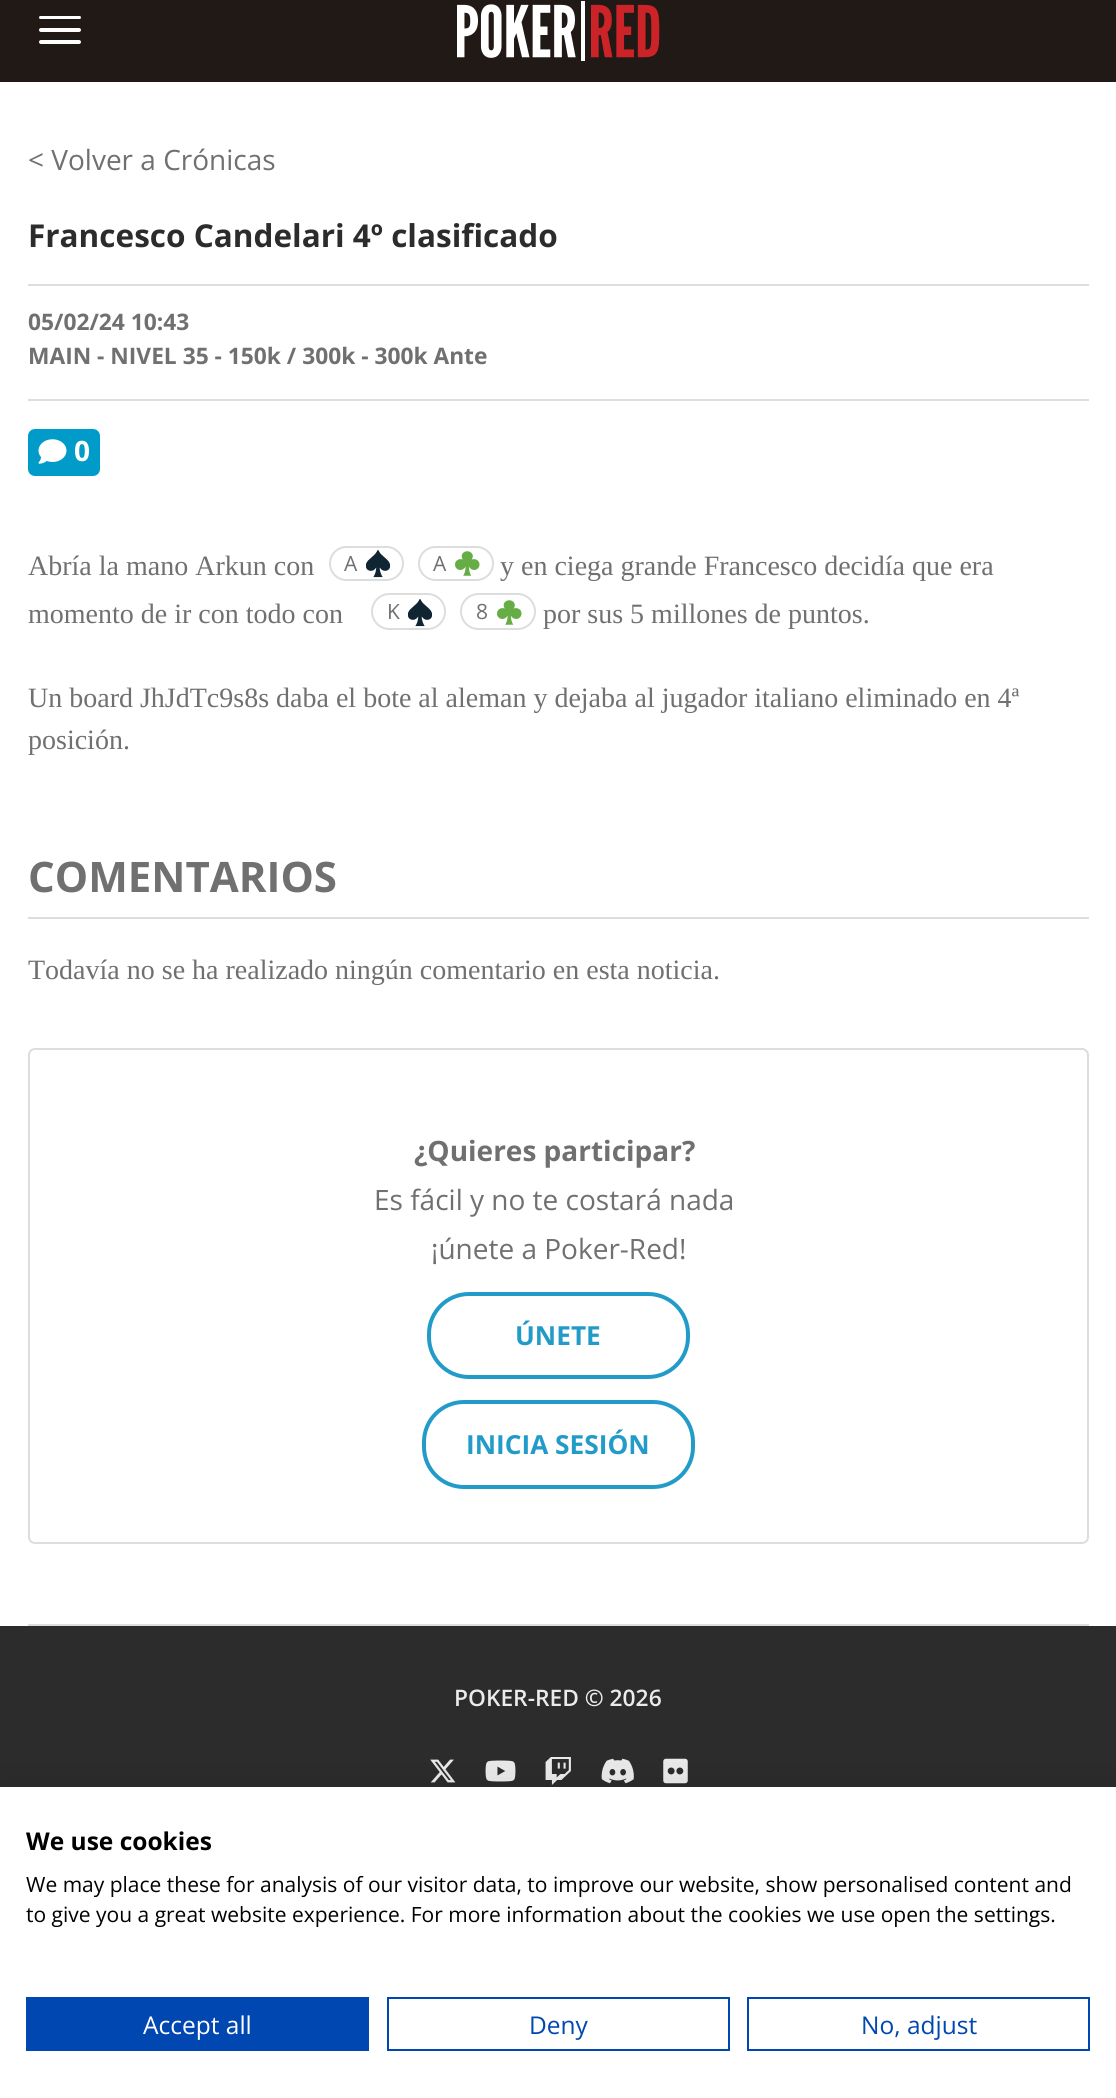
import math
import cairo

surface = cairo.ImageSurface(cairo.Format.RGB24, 1116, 2098)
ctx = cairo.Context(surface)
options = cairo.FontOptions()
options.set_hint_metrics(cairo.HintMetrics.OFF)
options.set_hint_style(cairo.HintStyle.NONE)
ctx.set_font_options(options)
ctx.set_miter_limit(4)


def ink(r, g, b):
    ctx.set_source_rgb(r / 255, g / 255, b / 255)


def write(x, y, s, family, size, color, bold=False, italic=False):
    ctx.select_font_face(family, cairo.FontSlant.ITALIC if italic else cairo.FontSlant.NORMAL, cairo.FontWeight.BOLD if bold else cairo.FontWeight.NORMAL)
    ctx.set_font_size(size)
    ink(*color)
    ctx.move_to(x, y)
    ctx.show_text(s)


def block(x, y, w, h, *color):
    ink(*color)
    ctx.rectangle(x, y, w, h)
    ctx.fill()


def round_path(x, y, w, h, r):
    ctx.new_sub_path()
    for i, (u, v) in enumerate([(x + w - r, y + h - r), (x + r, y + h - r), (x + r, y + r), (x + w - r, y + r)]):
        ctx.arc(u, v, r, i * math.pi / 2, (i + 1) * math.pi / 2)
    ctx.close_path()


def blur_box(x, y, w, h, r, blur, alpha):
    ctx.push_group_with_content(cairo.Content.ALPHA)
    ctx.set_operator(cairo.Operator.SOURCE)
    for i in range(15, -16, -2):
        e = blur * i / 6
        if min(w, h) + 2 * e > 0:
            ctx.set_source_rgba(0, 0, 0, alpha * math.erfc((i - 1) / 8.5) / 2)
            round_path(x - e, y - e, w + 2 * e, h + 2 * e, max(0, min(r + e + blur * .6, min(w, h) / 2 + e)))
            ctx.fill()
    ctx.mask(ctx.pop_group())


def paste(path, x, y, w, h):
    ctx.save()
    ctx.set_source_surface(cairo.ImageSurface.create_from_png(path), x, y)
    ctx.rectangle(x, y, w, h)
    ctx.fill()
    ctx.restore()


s1 = dict(family="Open Sans", size=28, color=(112, 112, 112))
s2 = dict(family="Open Sans", size=31.5, color=(44, 44, 44), bold=True)
s3 = dict(family="Open Sans", size=22.75, color=(112, 112, 112), bold=True)
s4 = dict(family="Open Sans", size=28, color=(255, 255, 255), bold=True)
s5 = dict(family="Liberation Serif", size=28, color=(112, 112, 112))
s6 = dict(family="Open Sans", size=21, color=(112, 112, 112))
s7 = dict(family="Open Sans", size=42, color=(112, 112, 112), bold=True)
s8 = dict(family="Open Sans", size=28, color=(112, 112, 112), bold=True)
s9 = dict(family="Open Sans", size=26.25, color=(34, 155, 201), bold=True)
s10 = dict(family="Open Sans SemiBold", size=22.75, color=(235, 235, 235))
s11 = dict(family="Open Sans", size=24.5, color=(0, 0, 0), bold=True)
s12 = dict(family="Open Sans", size=21, color=(0, 0, 0))
s13 = dict(family="Open Sans", size=24.5, color=(255, 255, 255))
s14 = dict(family="Open Sans", size=24.5, color=(0, 71, 178))

ink(255, 255, 255)
ctx.paint()
block(0, 0, 1116, 82, 32, 25, 21)
ink(255, 255, 255)
round_path(39, 16, 42, 3, 1.5)
ctx.fill()
round_path(39, 28, 42, 4, 2)
ctx.fill()
round_path(39, 40, 42, 4, 2)
ctx.fill()
paste("pic1.png", 457, 1, 203, 60)
block(28, 1624, 1061, 2, 221, 221, 221)
write(28, 170, "< Volver a Crónicas", **s1)
block(28, 284, 1061, 2, 221, 221, 221)
write(28, 247, "Francesco Candelari 4º clasificado", **s2)
block(28, 399, 1061, 2, 221, 221, 221)
write(28, 330, "05/02/24 10:43", **s3)
write(28, 364, "MAIN - NIVEL 35 - 150k / 300k - 300k Ante", **s3)
ink(0, 155, 201)
round_path(28, 429, 72, 47, 7)
ctx.fill()
paste("pic2.png", 38, 439, 29, 25)
write(74, 461, "0", **s4)
write(28, 575, "Abría la mano Arkun con", **s5)
round_path(330, 547, 73, 33, 16.5)
ink(221, 221, 221)
ctx.stroke()
write(344, 571, "A", **s6)
paste("pic3.png", 366, 550, 24, 28)
round_path(419, 547, 74, 33, 16.5)
ink(221, 221, 221)
ctx.stroke()
write(433, 571, "A", **s6)
paste("pic4.png", 455, 551, 25, 25)
write(500, 575, "y en ciega grande Francesco decidía que era", **s5)
write(28, 623, "momento de ir con todo con", **s5)
round_path(372, 594, 73, 35, 17.5)
ink(221, 221, 221)
ctx.stroke()
write(387, 619, "K", **s6)
paste("pic3.png", 408, 599, 24, 28)
round_path(461, 594, 74, 35, 17.5)
ink(221, 221, 221)
ctx.stroke()
write(476, 619, "8", **s6)
paste("pic4.png", 497, 600, 25, 25)
write(543, 623, "por sus 5 millones de puntos.", **s5)
write(28, 707, "Un board JhJdTc9s8s daba el bote al aleman y dejaba al jugador italiano eliminado en 4ª", **s5)
write(28, 749, "posición.", **s5)
block(28, 917, 1061, 2, 221, 221, 221)
write(28, 892, "COMENTARIOS", **s7)
write(28, 979, "Todavía no se ha realizado ningún comentario en esta noticia.", **s5)
round_path(29, 1049, 1059, 494, 6)
ink(221, 221, 221)
ctx.stroke()
write(414, 1161, "¿Quieres participar?", **s8)
write(374, 1210, "Es fácil y no te costará nada", **s1)
write(431, 1259, "¡únete a Poker-Red!", **s1)
round_path(429, 1294, 259, 83, 40)
ink(34, 155, 201)
ctx.set_line_width(4)
ctx.stroke()
write(515, 1345, "ÚNETE", **s9)
round_path(424, 1402, 269, 85, 40)
ctx.stroke()
write(466, 1454, "INICIA SESIÓN", **s9)
block(0, 1626, 1116, 161, 44, 44, 44)
write(454, 1706, "POKER-RED © 2026", **s10)
paste("pic5.png", 430, 1759, 26, 24)
paste("pic6.png", 485, 1760, 31, 22)
paste("pic7.png", 545, 1757, 26, 28)
paste("pic8.png", 601, 1758, 33, 26)
paste("pic9.png", 663, 1758, 25, 26)
ink(0, 0, 0)
blur_box(0, 1787, 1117, 311, 0, 21, 0.1)
block(0, 1787, 1116, 311, 255, 255, 255)
write(26, 1850, "We use cookies", **s11)
write(26, 1892, "We may place these for analysis of our visitor data, to improve our website, show personalised content and", **s12)
write(26, 1922, "to give you a great website experience. For more information about the cookies we use open the settings.", **s12)
block(26, 1997, 343, 54, 0, 71, 178)
write(143, 2034, "Accept all", **s13)
ctx.rectangle(388, 1998, 341, 52)
ink(0, 71, 178)
ctx.set_line_width(2)
ctx.stroke()
write(529, 2034, "Deny", **s14)
ctx.rectangle(748, 1998, 341, 52)
ctx.stroke()
write(861, 2034, "No, adjust", **s14)
surface.write_to_png("screenshot.png")
